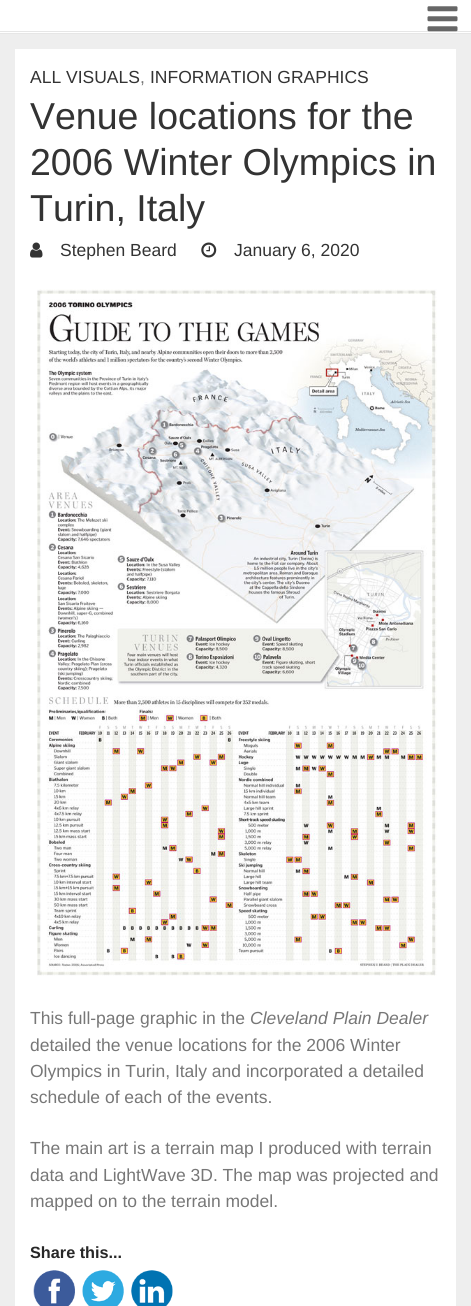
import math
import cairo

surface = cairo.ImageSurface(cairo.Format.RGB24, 471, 1306)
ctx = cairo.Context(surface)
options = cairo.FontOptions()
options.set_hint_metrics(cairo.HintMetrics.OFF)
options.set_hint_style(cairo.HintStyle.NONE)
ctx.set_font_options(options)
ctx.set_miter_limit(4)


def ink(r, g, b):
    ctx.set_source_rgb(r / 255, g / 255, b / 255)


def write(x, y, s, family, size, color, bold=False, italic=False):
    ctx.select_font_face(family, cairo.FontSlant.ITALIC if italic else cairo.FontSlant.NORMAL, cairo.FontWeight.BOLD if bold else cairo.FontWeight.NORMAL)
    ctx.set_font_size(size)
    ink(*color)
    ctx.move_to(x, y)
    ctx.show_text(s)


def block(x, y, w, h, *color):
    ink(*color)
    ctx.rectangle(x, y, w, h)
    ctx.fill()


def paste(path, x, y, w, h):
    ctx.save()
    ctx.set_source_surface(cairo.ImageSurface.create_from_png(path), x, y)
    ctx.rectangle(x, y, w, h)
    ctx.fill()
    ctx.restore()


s1 = dict(family="Liberation Sans", size=17.5, color=(51, 51, 51))
s2 = dict(family="Liberation Sans", size=17.5, color=(119, 119, 119))
s3 = dict(family="Liberation Sans", size=37.5, color=(51, 51, 51))
s4 = dict(family="Liberation Sans", size=17.5, color=(119, 119, 119), italic=True)
s5 = dict(family="Liberation Sans", size=16.25, color=(39, 39, 39), bold=True)

ink(238, 238, 238)
ctx.paint()
block(0, 0, 471, 31, 255, 255, 255)
block(0, 31, 471, 1, 230, 230, 230)
paste("pic1.png", 427, 6, 31, 26)
block(0, 32, 471, 1, 255, 255, 255)
block(0, 33, 471, 1, 230, 230, 230)
block(15, 49, 441, 1257, 255, 255, 255)
write(30, 83, "ALL VISUALS", **s1)
write(140, 83, ",", **s2)
write(150, 83, "INFORMATION GRAPHICS", **s1)
write(30, 129, "Venue locations for the", **s3)
write(30, 175, "2006 Winter Olympics in", **s3)
write(30, 221, "Turin, Italy", **s3)
paste("pic2.png", 30, 242, 13, 16)
write(60, 256, "Stephen Beard", **s1)
paste("pic3.png", 201, 242, 16, 16)
write(234, 256, "January 6, 2020", **s1)
paste("pic4.png", 37, 289, 400, 687)
write(30, 1024, "This full-page graphic in the", **s2)
write(250, 1024, "Cleveland Plain Dealer", **s4)
write(30, 1051, "detailed the venue locations for the 2006 Winter", **s2)
write(30, 1077, "Olympics in Turin, Italy and incorporated a detailed", **s2)
write(30, 1103, "schedule of each of the events.", **s2)
write(30, 1154, "The main art is a terrain map I produced with terrain", **s2)
write(30, 1181, "data and LightWave 3D. The map was projected and", **s2)
write(30, 1207, "mapped on to the terrain model.", **s2)
write(30, 1258, "Share this...", **s5)
paste("pic5.png", 33, 1270, 42, 36)
paste("pic6.png", 82, 1270, 42, 36)
paste("pic7.png", 131, 1270, 42, 36)
surface.write_to_png("screenshot.png")
